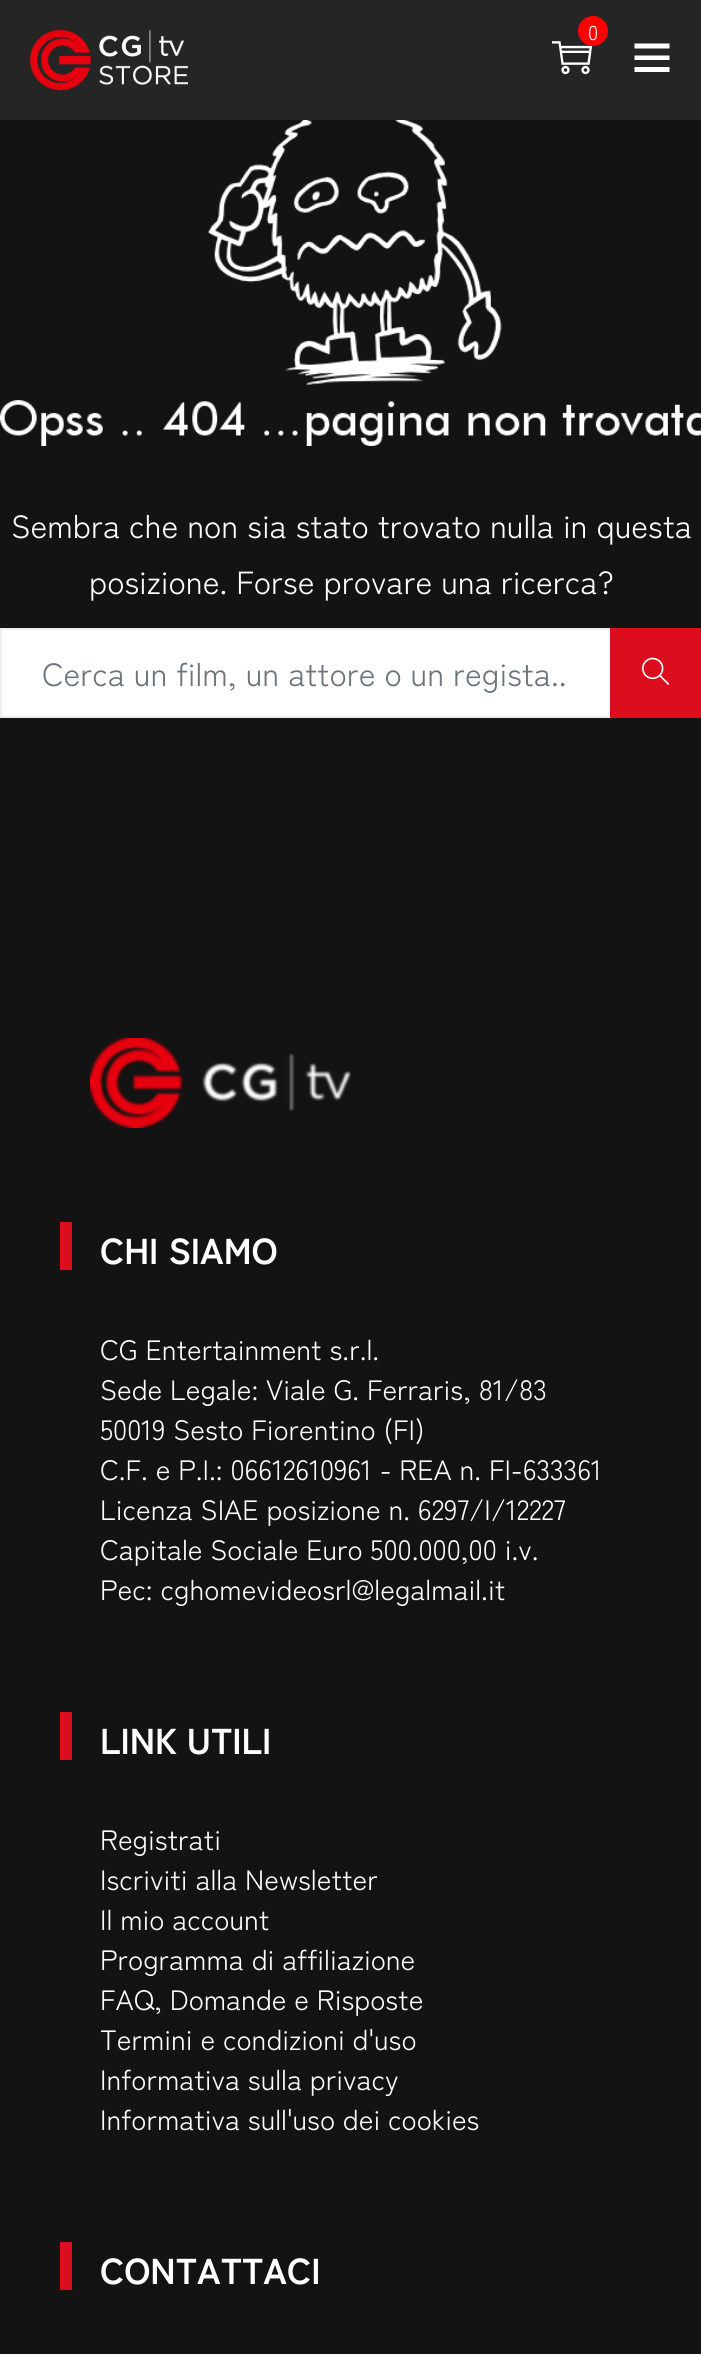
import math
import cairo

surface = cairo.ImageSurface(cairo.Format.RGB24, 701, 2354)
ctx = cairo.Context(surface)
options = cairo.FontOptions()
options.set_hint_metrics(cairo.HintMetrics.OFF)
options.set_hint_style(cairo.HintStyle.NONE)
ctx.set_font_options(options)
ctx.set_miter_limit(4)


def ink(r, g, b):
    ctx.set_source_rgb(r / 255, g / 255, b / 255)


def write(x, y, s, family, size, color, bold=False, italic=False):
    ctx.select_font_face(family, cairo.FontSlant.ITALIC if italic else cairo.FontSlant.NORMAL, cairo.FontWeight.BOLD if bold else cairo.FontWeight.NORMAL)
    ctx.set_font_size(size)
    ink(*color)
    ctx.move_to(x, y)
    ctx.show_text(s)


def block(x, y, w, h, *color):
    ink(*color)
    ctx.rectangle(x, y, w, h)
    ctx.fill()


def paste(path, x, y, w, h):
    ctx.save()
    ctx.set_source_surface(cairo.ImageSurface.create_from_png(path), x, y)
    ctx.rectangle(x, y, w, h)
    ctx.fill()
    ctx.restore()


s1 = dict(family="Zen Kaku Gothic Antique", size=20, color=(255, 255, 255))
s2 = dict(family="Zen Kaku Gothic Antique", size=32, color=(255, 255, 255))
s3 = dict(family="Zen Kaku Gothic Antique", size=32, color=(108, 117, 125))
s4 = dict(family="Zen Kaku Gothic Antique", size=36, color=(255, 255, 255), bold=True)
s5 = dict(family="Zen Kaku Gothic Antique", size=28, color=(255, 255, 255))

ink(19, 19, 19)
ctx.paint()
block(0, 0, 701, 120, 37, 37, 37)
paste("pic1.png", 30, 30, 158, 61)
paste("pic2.png", 552, 41, 41, 34)
ink(255, 0, 0)
ctx.arc(593, 31, 15, 0, 2 * math.pi)
ctx.fill()
write(588, 40, "0", **s1)
ctx.new_path()
ctx.move_to(669.5, 43.5)
ctx.line_to(669.5, 48.5)
ctx.line_to(634.5, 48.5)
ctx.line_to(634.5, 43.5)
ctx.close_path()
ctx.move_to(634.5, 60)
ctx.line_to(669.5, 60)
ctx.line_to(669.5, 55.5)
ctx.line_to(634.5, 55.5)
ctx.close_path()
ctx.move_to(634.5, 72)
ctx.line_to(669.5, 72)
ctx.line_to(669.5, 67)
ctx.line_to(634.5, 67)
ctx.close_path()
ctx.fill()
paste("pic3.png", 0, 120, 701, 326)
write(11, 538, "Sembra che non sia stato trovato nulla in questa", **s2)
write(89, 594, "posizione. Forse provare una ricerca?", **s2)
block(2, 630, 608, 86, 255, 255, 255)
block(0, 628, 610, 2, 238, 238, 238)
block(0, 716, 610, 2, 238, 238, 238)
block(0, 628, 2, 90, 238, 238, 238)
write(42, 686, "Cerca un film, un attore o un regista..", **s3)
block(610, 628, 91, 90, 220, 13, 29)
paste("pic4.png", 642, 657, 28, 28)
paste("pic5.png", 90, 1038, 261, 90)
block(60, 1222, 12, 48, 220, 13, 29)
write(100, 1264, "CHI SIAMO", **s4)
write(100, 1360, "CG Entertainment s.r.l.", **s5)
write(100, 1400, "Sede Legale: Viale G. Ferraris, 81/83", **s5)
write(100, 1440, "50019 Sesto Fiorentino (FI)", **s5)
write(100, 1480, "C.F. e P.I.: 06612610961 - REA n. FI-633361", **s5)
write(100, 1520, "Licenza SIAE posizione n. 6297/I/12227", **s5)
write(100, 1560, "Capitale Sociale Euro 500.000,00 i.v.", **s5)
write(100, 1600, "Pec: cghomevideosrl@legalmail.it", **s5)
block(60, 1712, 12, 48, 220, 13, 29)
write(100, 1754, "LINK UTILI", **s4)
write(100, 1850, "Registrati", **s5)
write(100, 1890, "Iscriviti alla Newsletter", **s5)
write(100, 1930, "Il mio account", **s5)
write(100, 1970, "Programma di affiliazione", **s5)
write(100, 2010, "FAQ, Domande e Risposte", **s5)
write(100, 2050, "Termini e condizioni d'uso", **s5)
write(100, 2090, "Informativa sulla privacy", **s5)
write(100, 2130, "Informativa sull'uso dei cookies", **s5)
block(60, 2242, 12, 48, 220, 13, 29)
write(100, 2284, "CONTATTACI", **s4)
surface.write_to_png("screenshot.png")
